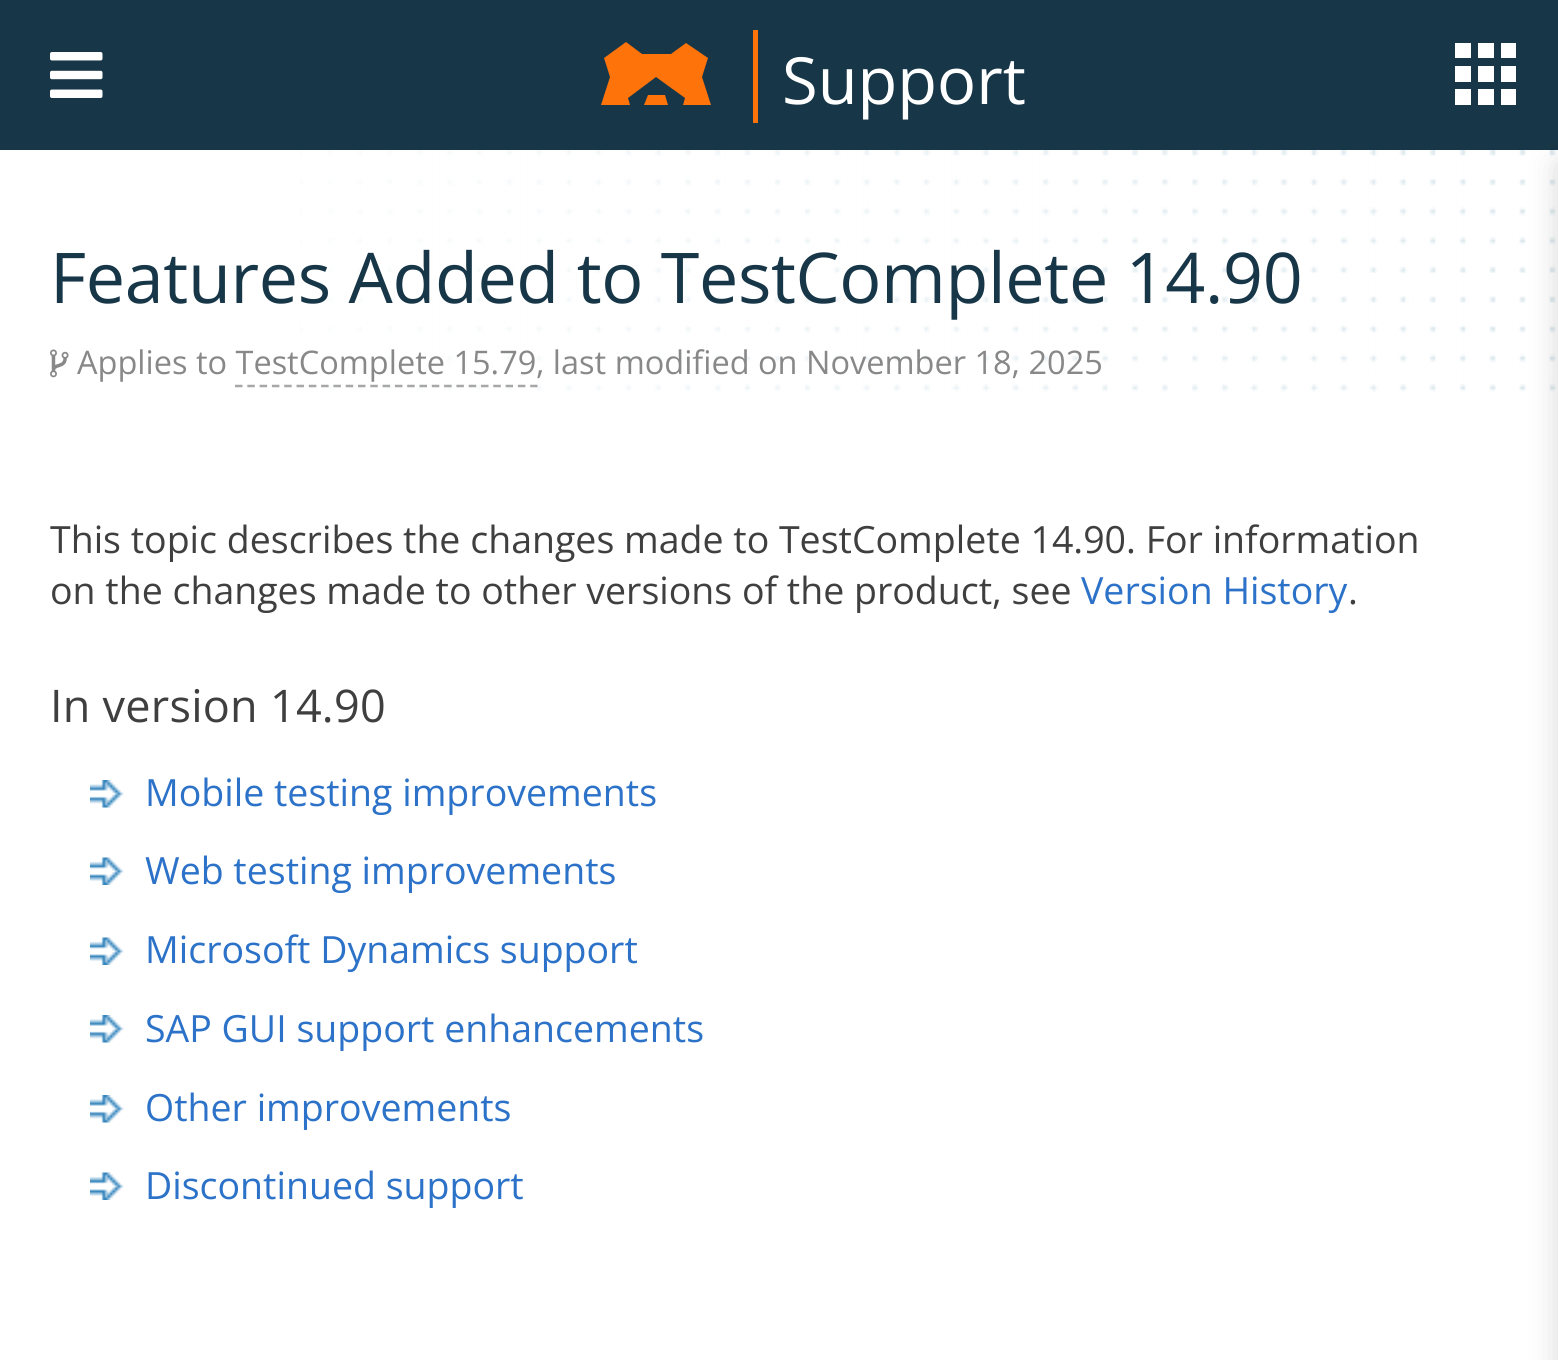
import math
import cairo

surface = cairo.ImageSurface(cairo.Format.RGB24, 1558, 1360)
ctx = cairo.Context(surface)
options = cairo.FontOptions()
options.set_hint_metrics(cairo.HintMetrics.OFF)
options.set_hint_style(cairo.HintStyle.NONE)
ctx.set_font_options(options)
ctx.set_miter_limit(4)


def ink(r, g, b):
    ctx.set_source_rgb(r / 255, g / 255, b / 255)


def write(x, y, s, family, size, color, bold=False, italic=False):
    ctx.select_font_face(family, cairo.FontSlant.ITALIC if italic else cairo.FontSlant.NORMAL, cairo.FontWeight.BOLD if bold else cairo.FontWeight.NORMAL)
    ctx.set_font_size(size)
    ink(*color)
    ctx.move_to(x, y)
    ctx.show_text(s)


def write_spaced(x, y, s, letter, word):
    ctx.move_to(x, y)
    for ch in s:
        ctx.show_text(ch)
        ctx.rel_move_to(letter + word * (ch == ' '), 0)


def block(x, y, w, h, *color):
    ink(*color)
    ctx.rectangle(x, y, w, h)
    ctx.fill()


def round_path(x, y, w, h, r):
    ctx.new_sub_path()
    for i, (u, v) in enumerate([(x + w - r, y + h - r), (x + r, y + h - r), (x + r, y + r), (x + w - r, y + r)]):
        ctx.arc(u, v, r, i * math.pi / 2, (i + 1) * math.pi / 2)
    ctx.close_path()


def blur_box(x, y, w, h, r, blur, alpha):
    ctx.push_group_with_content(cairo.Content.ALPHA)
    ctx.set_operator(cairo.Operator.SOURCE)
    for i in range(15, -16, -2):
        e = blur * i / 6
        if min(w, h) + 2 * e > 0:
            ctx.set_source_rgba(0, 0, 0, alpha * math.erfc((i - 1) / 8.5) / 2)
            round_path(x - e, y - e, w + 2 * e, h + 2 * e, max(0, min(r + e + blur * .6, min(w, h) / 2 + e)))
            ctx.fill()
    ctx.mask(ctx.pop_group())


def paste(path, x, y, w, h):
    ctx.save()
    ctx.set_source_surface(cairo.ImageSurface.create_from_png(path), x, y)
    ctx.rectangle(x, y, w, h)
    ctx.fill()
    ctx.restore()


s1 = dict(family="Open Sans", size=65, color=(255, 255, 255))
s2 = dict(family="Open Sans", size=32.5, color=(136, 136, 136))
s3 = dict(family="Open Sans", size=37.5, color=(63, 63, 63))
s4 = dict(family="Open Sans", size=37.5, color=(44, 114, 200))

ink(255, 255, 255)
ctx.paint()
block(0, 0, 1558, 150, 23, 54, 71)
paste("pic1.png", 50, 52, 53, 46)
ink(255, 115, 11)
ctx.new_path()
ctx.move_to(665, 95)
ctx.line_to(648, 95)
ctx.line_to(644, 105)
ctx.line_to(668, 105)
ctx.close_path()
ctx.move_to(711, 105)
ctx.line_to(702, 77)
ctx.line_to(708, 58)
ctx.line_to(686, 43)
ctx.line_to(671, 54)
ctx.line_to(642, 54)
ctx.line_to(626, 42)
ctx.line_to(604, 58)
ctx.line_to(610, 77)
ctx.line_to(601, 105)
ctx.line_to(630, 105)
ctx.line_to(628, 98)
ctx.line_to(656, 77)
ctx.line_to(685, 98)
ctx.line_to(683, 105)
ctx.close_path()
ctx.fill()
block(753, 30, 5, 93, 255, 115, 11)
write(782, 104, "Support", **s1)
block(1455, 43, 16, 15, 255, 255, 255)
block(1478, 43, 16, 15, 255, 255, 255)
block(1501, 43, 15, 15, 255, 255, 255)
block(1455, 66, 16, 16, 255, 255, 255)
block(1478, 66, 16, 16, 255, 255, 255)
block(1501, 66, 15, 16, 255, 255, 255)
block(1455, 89, 16, 16, 255, 255, 255)
block(1478, 89, 16, 16, 255, 255, 255)
block(1501, 89, 15, 16, 255, 255, 255)
paste("pic2.png", 300, 150, 1256, 242)
ink(0, 0, 0)
blur_box(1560, 165, 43, 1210, 0, 15, 0.18)
ctx.set_font_size(70)
ink(23, 54, 71)
write_spaced(50, 303, "Features Added to TestComplete 14.90", -0.35, 0)
paste("pic3.png", 50, 349, 19, 29)
write(77, 374, "Applies to TestComplete 15.79", **s2)
write(536, 374, ", last modified on November 18, 2025", **s2)
ctx.new_path()
ctx.move_to(235, 386)
ctx.line_to(537.5, 386)
ink(167, 167, 167)
ctx.set_line_width(2.5)
ctx.set_dash([7.5, 4.8])
ctx.stroke()
write(50, 553, "This topic describes the changes made to TestComplete 14.90. For information", **s3)
write(50, 604, "on the changes made to other versions of the product, see", **s3)
write(1081, 604, "Version History", **s4)
write(1348, 604, ".", **s3)
ctx.set_font_size(45)
write_spaced(50, 722, "In version 14.90", 0.25, 0)
paste("pic4.png", 90, 780, 34, 28)
write(145, 806, "Mobile testing improvements", **s4)
paste("pic5.png", 90, 857, 34, 28)
write(145, 884, "Web testing improvements", **s4)
paste("pic5.png", 90, 937, 34, 28)
write(145, 963, "Microsoft Dynamics support", **s4)
paste("pic6.png", 90, 1015, 34, 28)
write(145, 1042, "SAP GUI support enhancements", **s4)
paste("pic6.png", 90, 1095, 34, 28)
write(145, 1121, "Other improvements", **s4)
paste("pic7.png", 90, 1172, 34, 28)
write(145, 1199, "Discontinued support", **s4)
surface.write_to_png("screenshot.png")
